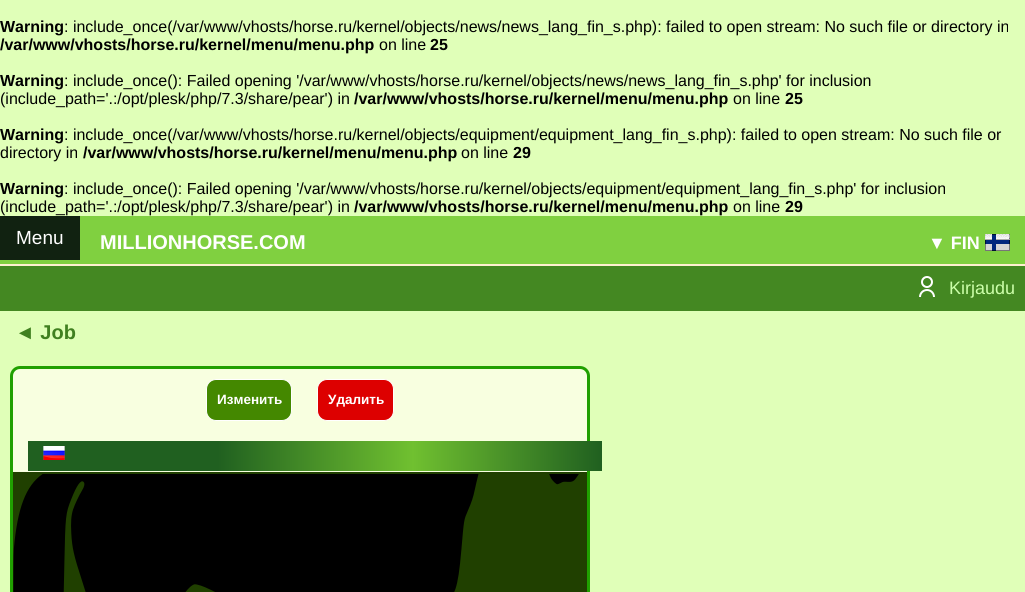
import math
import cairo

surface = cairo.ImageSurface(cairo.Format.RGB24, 1025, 592)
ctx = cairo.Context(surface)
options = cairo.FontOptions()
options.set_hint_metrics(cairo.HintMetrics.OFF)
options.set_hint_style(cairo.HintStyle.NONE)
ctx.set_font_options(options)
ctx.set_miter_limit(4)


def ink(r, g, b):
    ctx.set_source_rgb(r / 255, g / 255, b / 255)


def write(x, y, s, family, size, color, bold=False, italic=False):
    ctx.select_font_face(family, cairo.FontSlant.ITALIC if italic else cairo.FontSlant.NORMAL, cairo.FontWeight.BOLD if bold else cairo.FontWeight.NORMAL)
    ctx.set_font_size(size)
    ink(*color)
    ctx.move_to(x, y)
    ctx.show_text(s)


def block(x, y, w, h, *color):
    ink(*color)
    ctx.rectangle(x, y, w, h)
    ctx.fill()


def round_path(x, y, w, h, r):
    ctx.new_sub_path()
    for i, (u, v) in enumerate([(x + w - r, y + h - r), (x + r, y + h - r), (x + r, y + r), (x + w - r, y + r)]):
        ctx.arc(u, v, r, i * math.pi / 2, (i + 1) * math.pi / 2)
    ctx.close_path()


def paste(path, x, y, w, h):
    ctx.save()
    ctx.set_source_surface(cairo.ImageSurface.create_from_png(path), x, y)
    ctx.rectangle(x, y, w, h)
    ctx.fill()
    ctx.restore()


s1 = dict(family="Liberation Sans", size=16, color=(0, 0, 0), bold=True)
s2 = dict(family="Liberation Sans", size=16, color=(0, 0, 0))
s3 = dict(family="Liberation Sans", size=19, color=(255, 255, 255))
s4 = dict(family="Liberation Sans", size=20, color=(255, 255, 255), bold=True)
s5 = dict(family="Liberation Sans", size=18, color=(255, 255, 255), bold=True)
s6 = dict(family="Liberation Sans", size=18, color=(204, 255, 170))
s7 = dict(family="Liberation Sans", size=20, color=(64, 128, 32), bold=True)
s8 = dict(family="Liberation Sans", size=13.5, color=(255, 255, 255), bold=True)

ink(224, 255, 184)
ctx.paint()
write(0, 32, "Warning", **s1)
write(64, 32, ": include_once(/var/www/vhosts/horse.ru/kernel/objects/news/news_lang_fin_s.php): failed to open stream: No such file or directory in", **s2)
write(0, 50, "/var/www/vhosts/horse.ru/kernel/menu/menu.php", **s1)
write(379, 50, "on line", **s2)
write(430, 50, "25", **s1)
write(0, 86, "Warning", **s1)
write(64, 86, ": include_once(): Failed opening '/var/www/vhosts/horse.ru/kernel/objects/news/news_lang_fin_s.php' for inclusion", **s2)
write(0, 104, "(include_path='.:/opt/plesk/php/7.3/share/pear') in", **s2)
write(354, 104, "/var/www/vhosts/horse.ru/kernel/menu/menu.php", **s1)
write(733, 104, "on line", **s2)
write(785, 104, "25", **s1)
write(0, 140, "Warning", **s1)
write(64, 140, ": include_once(/var/www/vhosts/horse.ru/kernel/objects/equipment/equipment_lang_fin_s.php): failed to open stream: No such file or", **s2)
write(0, 158, "directory in", **s2)
write(83, 158, "/var/www/vhosts/horse.ru/kernel/menu/menu.php", **s1)
write(461, 158, "on line", **s2)
write(513, 158, "29", **s1)
write(0, 194, "Warning", **s1)
write(64, 194, ": include_once(): Failed opening '/var/www/vhosts/horse.ru/kernel/objects/equipment/equipment_lang_fin_s.php' for inclusion", **s2)
write(0, 212, "(include_path='.:/opt/plesk/php/7.3/share/pear') in", **s2)
write(354, 212, "/var/www/vhosts/horse.ru/kernel/menu/menu.php", **s1)
write(733, 212, "on line", **s2)
write(785, 212, "29", **s1)
block(0, 216, 1025, 48, 128, 208, 64)
block(0, 264, 1025, 2, 255, 240, 208)
block(0, 216, 80, 44, 17, 34, 17)
write(16, 244, "Menu", **s3)
write(100, 249, "MILLIONHORSE.COM", **s4)
write(928, 249, "▼ FIN", **s5)
paste("pic1.png", 985, 234, 25, 17)
block(0, 266, 1025, 45, 68, 136, 34)
paste("pic2.png", 919, 276, 16, 21)
write(949, 294, "Kirjaudu", **s6)
write(15, 339, "◄ Job", **s7)
ink(248, 255, 224)
round_path(11.5, 367.5, 577, 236, 8.5)
ctx.fill_preserve()
ink(32, 160, 0)
ctx.set_line_width(3)
ctx.stroke()
ink(68, 136, 0)
round_path(206.5, 379.5, 85, 41, 9.5)
ctx.fill_preserve()
ink(255, 255, 255)
ctx.set_line_width(1)
ctx.stroke()
write(217, 404, "Изменить", **s8)
ink(221, 0, 0)
round_path(317.5, 379.5, 76, 41, 9.5)
ctx.fill_preserve()
ink(255, 255, 255)
ctx.stroke()
write(328, 404, "Удалить", **s8)
gradient = cairo.LinearGradient(28, 456, 602, 456)
gradient.add_color_stop_rgba(0, 0.125, 0.376, 0.125, 1)
gradient.add_color_stop_rgba(0.33, 0.125, 0.376, 0.125, 1)
gradient.add_color_stop_rgba(0.67, 0.439, 0.753, 0.188, 1)
gradient.add_color_stop_rgba(1, 0.125, 0.376, 0.125, 1)
ctx.set_source(gradient)
ctx.rectangle(28, 441, 574, 30)
ctx.fill()
paste("pic3.png", 43, 446, 22, 14)
block(13, 472, 574, 120, 32, 64, 0)
paste("pic4.png", 13, 474, 566, 118)
surface.write_to_png("screenshot.png")
